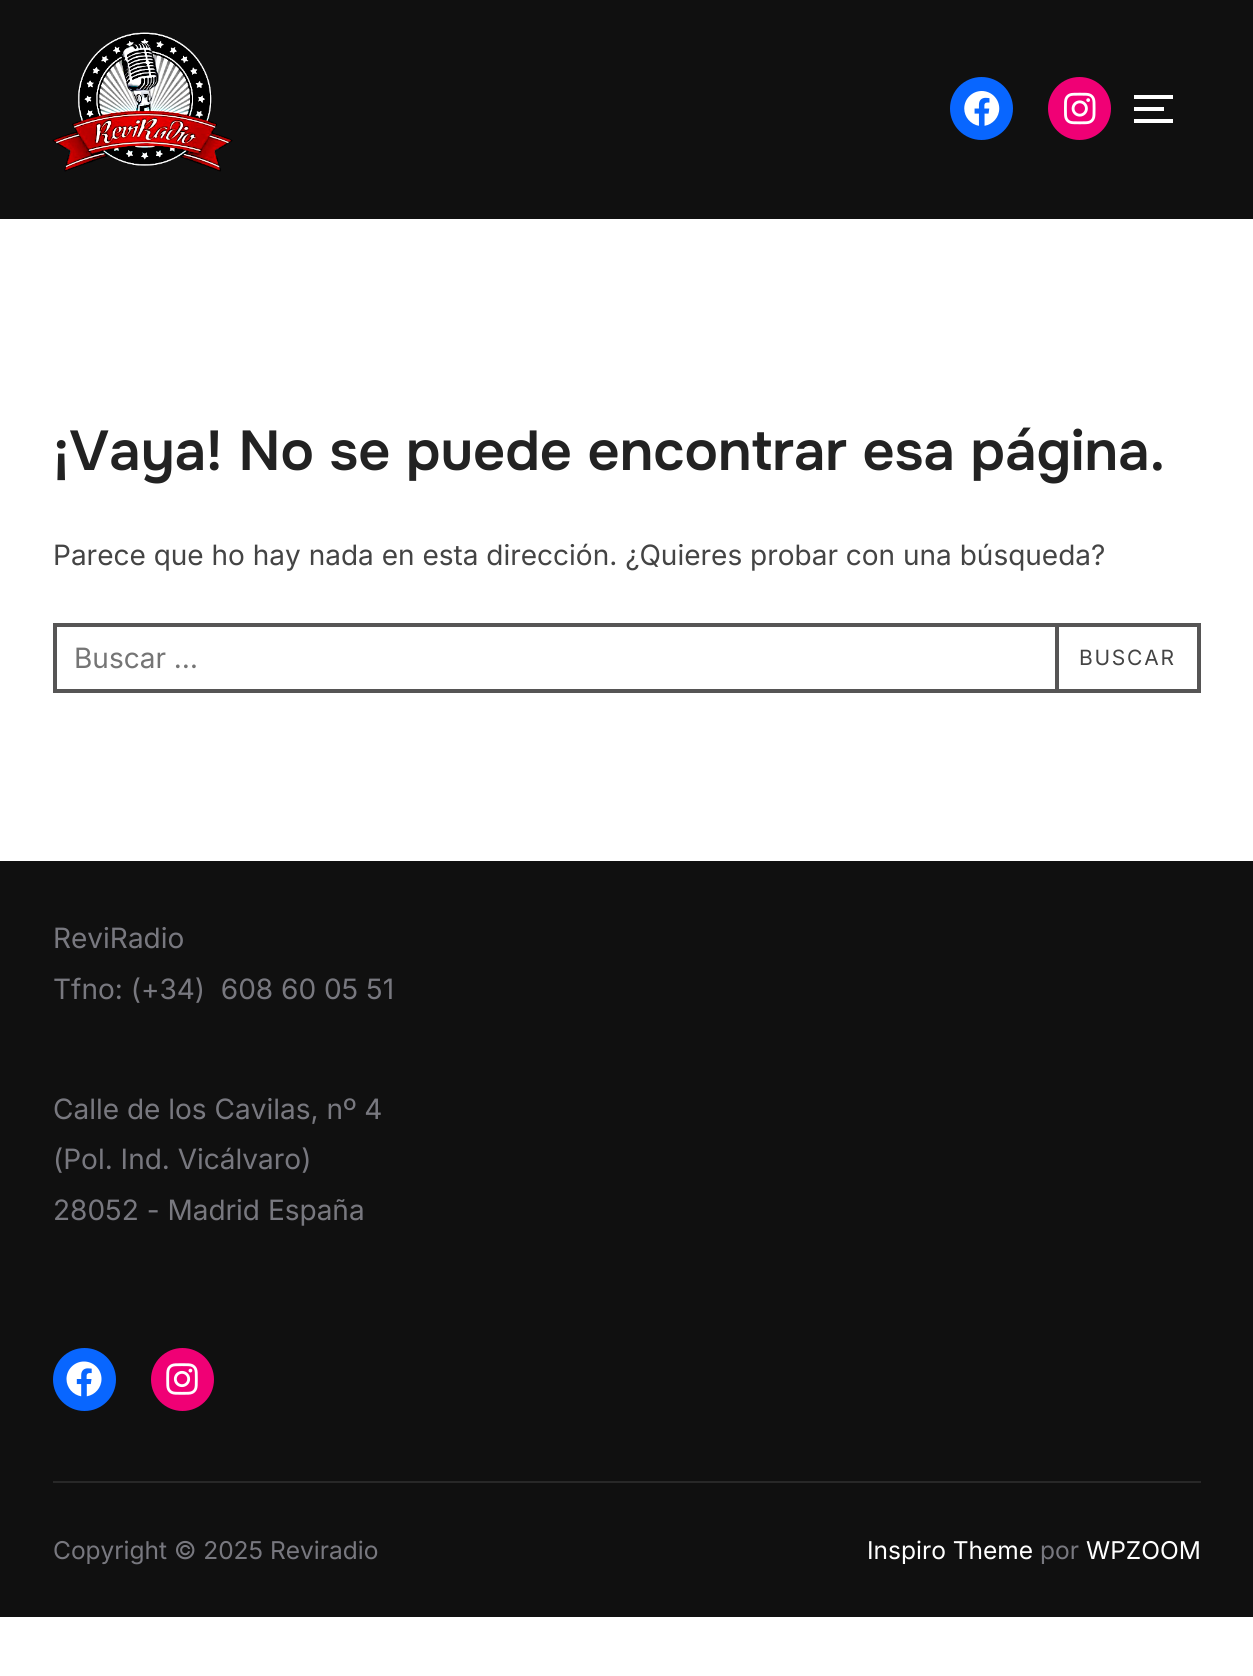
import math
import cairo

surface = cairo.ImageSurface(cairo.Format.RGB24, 1253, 1676)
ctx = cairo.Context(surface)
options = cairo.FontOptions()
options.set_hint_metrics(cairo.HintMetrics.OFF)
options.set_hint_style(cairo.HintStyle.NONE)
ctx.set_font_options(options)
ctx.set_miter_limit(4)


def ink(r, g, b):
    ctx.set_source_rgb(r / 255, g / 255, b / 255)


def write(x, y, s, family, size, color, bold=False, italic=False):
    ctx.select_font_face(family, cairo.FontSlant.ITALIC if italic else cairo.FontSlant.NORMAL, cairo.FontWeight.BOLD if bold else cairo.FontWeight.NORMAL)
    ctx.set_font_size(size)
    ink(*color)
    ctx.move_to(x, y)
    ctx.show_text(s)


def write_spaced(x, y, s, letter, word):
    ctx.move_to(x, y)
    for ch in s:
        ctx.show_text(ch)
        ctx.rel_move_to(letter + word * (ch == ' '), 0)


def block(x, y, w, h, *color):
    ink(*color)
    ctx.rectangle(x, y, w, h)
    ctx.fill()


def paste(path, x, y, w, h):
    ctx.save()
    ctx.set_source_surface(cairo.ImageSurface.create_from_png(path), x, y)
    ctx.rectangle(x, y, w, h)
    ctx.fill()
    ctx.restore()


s1 = dict(family="Onest SemiBold", size=56, color=(34, 34, 34))
s2 = dict(family="Inter", size=28, color=(68, 68, 68))
s3 = dict(family="Inter", size=28, color=(117, 117, 117))
s4 = dict(family="Inter", size=28, color=(120, 120, 127))
s5 = dict(family="Inter", size=24.5, color=(120, 120, 127))
s6 = dict(family="Inter", size=24.5, color=(255, 255, 255))

ink(255, 255, 255)
ctx.paint()
block(0, 0, 1253, 219, 16, 16, 16)
paste("pic1.png", 52, 32, 181, 140)
ink(8, 102, 255)
ctx.arc(981.5, 108.5, 31.5, 0, 2 * math.pi)
ctx.fill()
paste("pic2.png", 964, 91, 36, 35)
ink(240, 0, 117)
ctx.arc(1079.5, 108.5, 31.5, 0, 2 * math.pi)
ctx.fill()
paste("pic3.png", 1064, 92, 32, 33)
block(1134, 95, 39, 4, 255, 255, 255)
block(1134, 107, 30, 4, 255, 255, 255)
block(1134, 119, 39, 4, 255, 255, 255)
write(53, 470, "¡Vaya! No se puede encontrar esa página.", **s1)
write(53, 565, "Parece que ho hay nada en esta dirección. ¿Quieres probar con una búsqueda?", **s2)
ctx.rectangle(55, 625, 1144, 66)
ink(86, 85, 85)
ctx.set_line_width(4)
ctx.stroke()
write(74, 668, "Buscar …", **s3)
ctx.rectangle(1057, 625, 142, 66)
ink(86, 85, 85)
ctx.stroke()
ctx.set_font_size(21)
ink(68, 68, 68)
write_spaced(1079, 665, "BUSCAR", 1.75, 0)
block(0, 861, 1253, 756, 16, 16, 16)
write(53, 948, "ReviRadio", **s4)
write(53, 999, "Tfno: (+34)  608 60 05 51", **s4)
write(53, 1119, "Calle de los Cavilas, nº 4", **s4)
write(53, 1169, "(Pol. Ind. Vicálvaro)", **s4)
write(53, 1220, "28052 - Madrid España", **s4)
ink(8, 102, 255)
ctx.new_path()
ctx.arc(84.5, 1379.5, 31.5, 0, 2 * math.pi)
ctx.fill()
paste("pic4.png", 66, 1361, 36, 36)
ink(240, 0, 117)
ctx.arc(182.5, 1379.5, 31.5, 0, 2 * math.pi)
ctx.fill()
paste("pic5.png", 166, 1363, 32, 32)
block(53, 1481, 1148, 2, 40, 40, 40)
write(53, 1559, "Copyright © 2025 Reviradio", **s5)
write(867, 1559, "Inspiro Theme", **s6)
write(1040, 1559, "por", **s5)
write(1086, 1559, "WPZOOM", **s6)
surface.write_to_png("screenshot.png")
